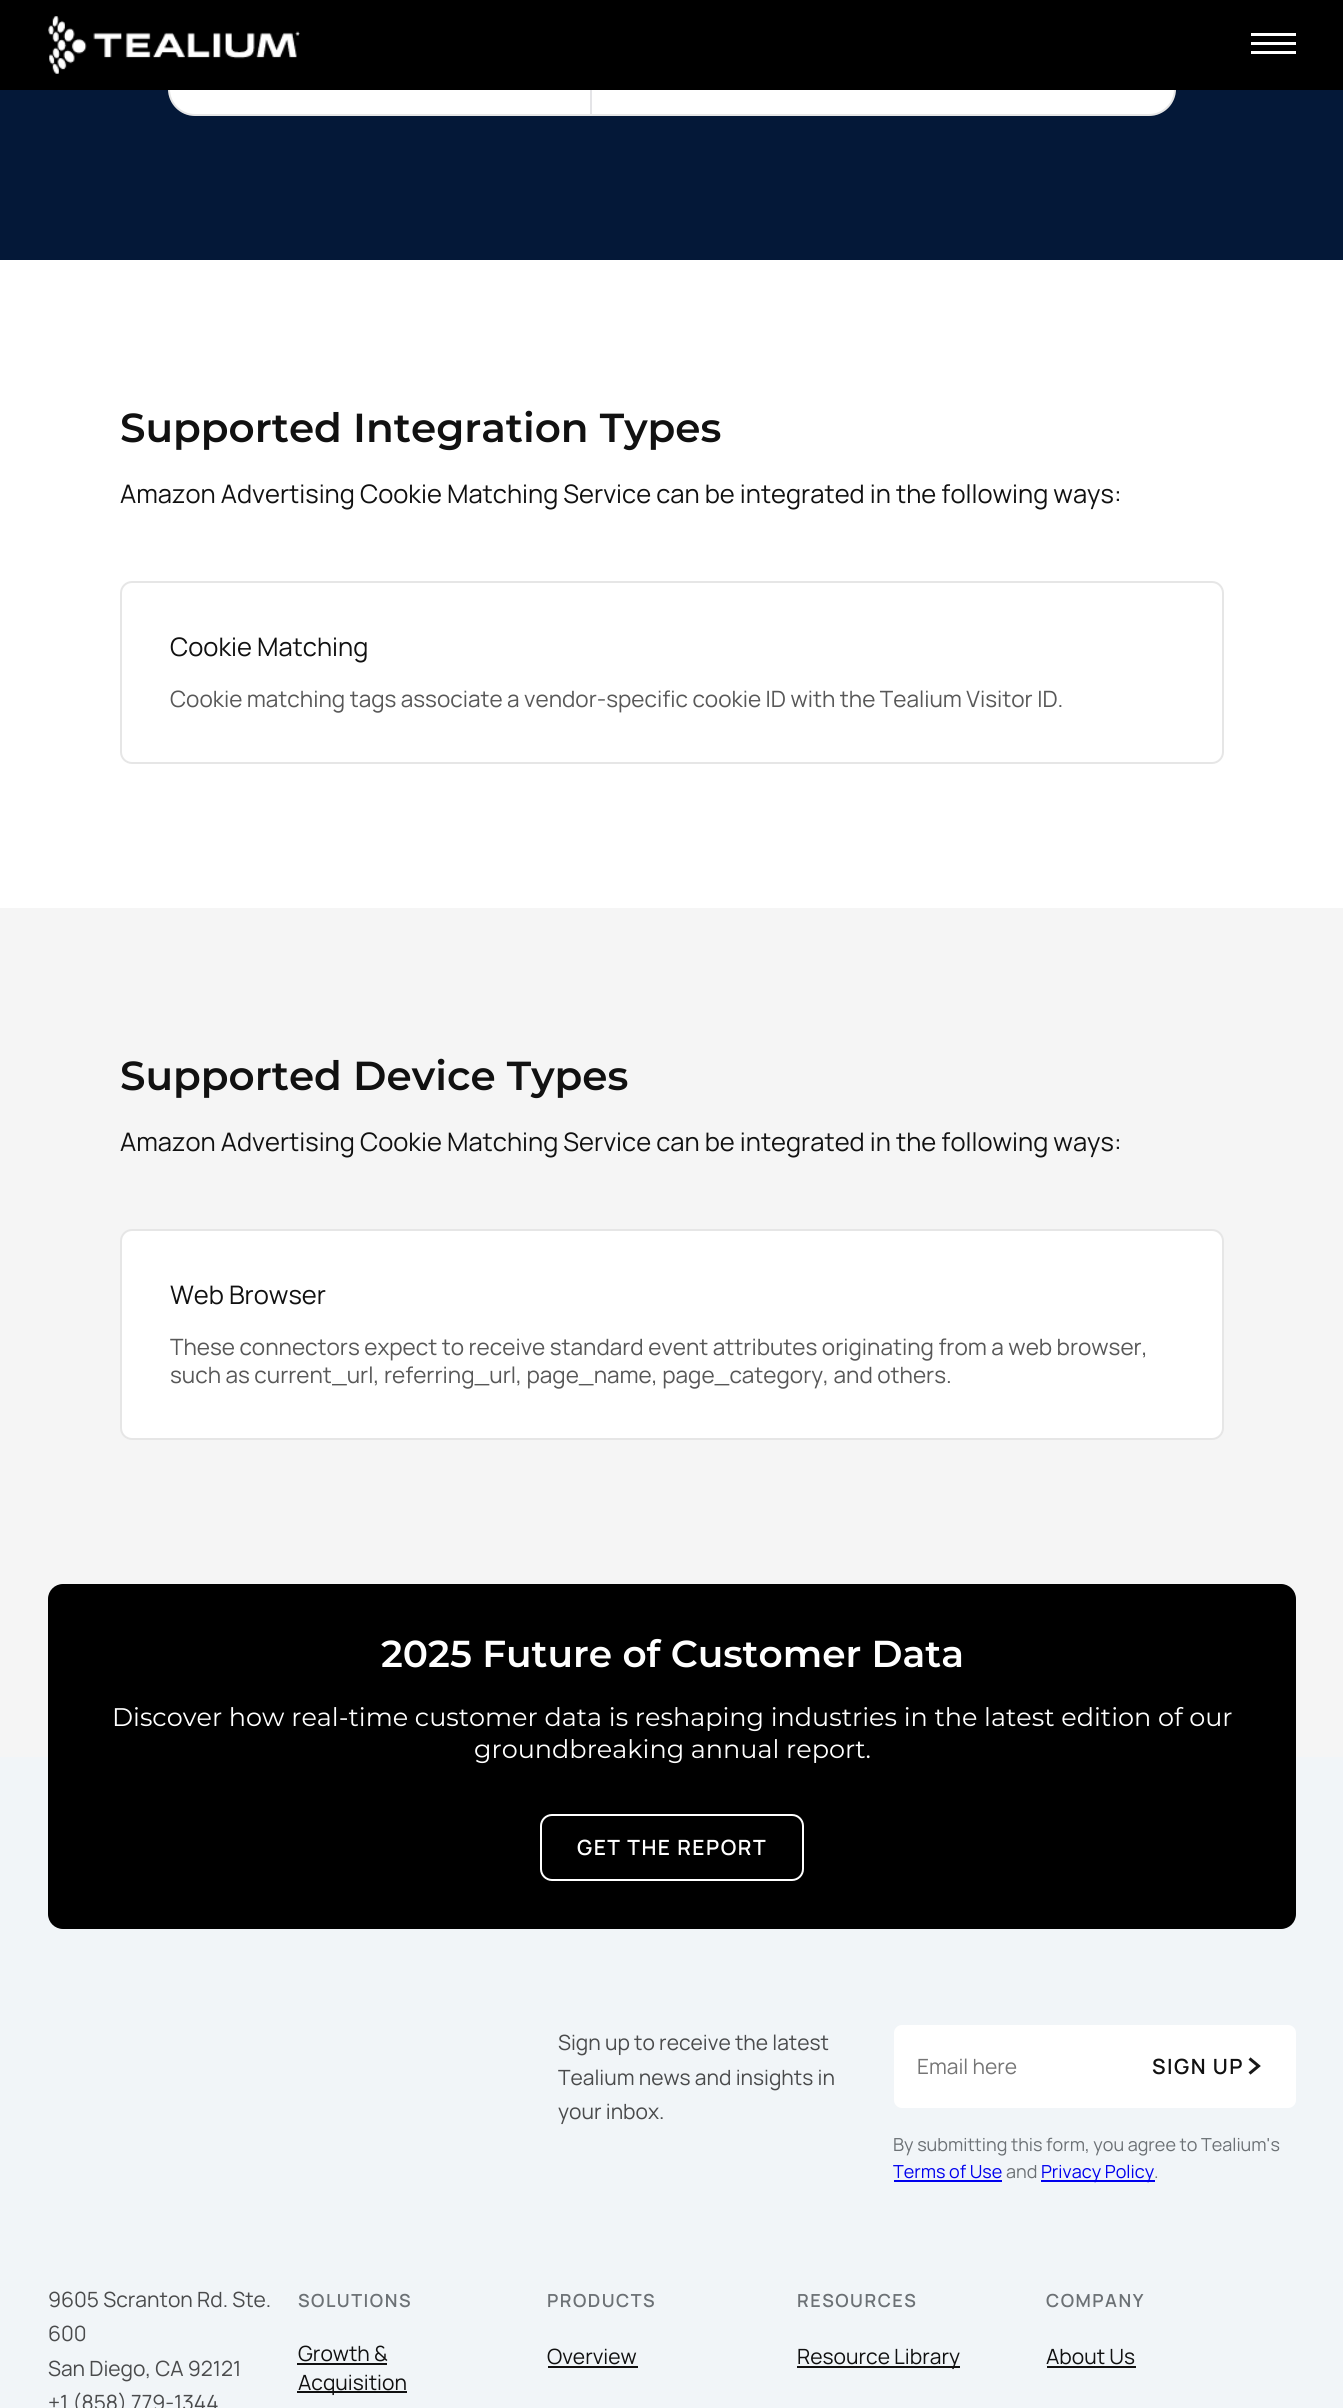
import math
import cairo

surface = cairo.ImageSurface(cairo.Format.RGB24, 1343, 2408)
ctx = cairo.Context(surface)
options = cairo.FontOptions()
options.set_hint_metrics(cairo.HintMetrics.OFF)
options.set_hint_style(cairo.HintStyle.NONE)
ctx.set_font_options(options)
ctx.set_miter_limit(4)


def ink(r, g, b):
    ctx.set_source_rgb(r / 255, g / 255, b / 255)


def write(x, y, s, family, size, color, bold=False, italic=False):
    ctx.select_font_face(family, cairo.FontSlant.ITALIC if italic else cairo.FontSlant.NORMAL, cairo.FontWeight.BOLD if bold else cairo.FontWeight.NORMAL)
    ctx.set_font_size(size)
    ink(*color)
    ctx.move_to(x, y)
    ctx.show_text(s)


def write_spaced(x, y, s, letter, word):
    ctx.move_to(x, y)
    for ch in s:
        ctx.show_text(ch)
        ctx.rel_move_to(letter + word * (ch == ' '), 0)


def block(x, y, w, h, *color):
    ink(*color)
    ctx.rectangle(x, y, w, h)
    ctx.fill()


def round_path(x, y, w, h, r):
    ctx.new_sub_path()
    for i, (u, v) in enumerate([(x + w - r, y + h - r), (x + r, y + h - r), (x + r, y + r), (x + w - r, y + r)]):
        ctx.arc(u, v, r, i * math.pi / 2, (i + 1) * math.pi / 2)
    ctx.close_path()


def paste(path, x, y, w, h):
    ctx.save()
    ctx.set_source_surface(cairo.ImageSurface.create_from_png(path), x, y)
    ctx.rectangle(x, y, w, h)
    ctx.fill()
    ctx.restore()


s1 = dict(family="Montserrat SemiBold", size=40.5, color=(17, 17, 17))
s2 = dict(family="Manrope", size=25.5, color=(17, 17, 17))
s3 = dict(family="Manrope", size=22.5, color=(88, 88, 88))
s4 = dict(family="Montserrat SemiBold", size=37.5, color=(255, 255, 255))
s5 = dict(family="Montserrat", size=25.5, color=(255, 255, 255))
s6 = dict(family="Manrope", size=21, color=(74, 75, 76))
s7 = dict(family="Manrope", size=21, color=(117, 117, 117))
s8 = dict(family="Manrope", size=18, color=(108, 113, 117))
s9 = dict(family="Manrope", size=18, color=(0, 0, 238))
s10 = dict(family="Manrope", size=21, color=(17, 17, 17))

ink(255, 255, 255)
ctx.paint()
block(0, 90, 1343, 170, 4, 24, 56)
ink(255, 255, 255)
round_path(168, -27, 1008, 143, 27)
ctx.fill()
round_path(169, -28, 1006, 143, 26)
ctx.set_source_rgba(0, 0, 0, 0.1)
ctx.stroke()
block(0, 0, 1343, 90, 0, 0, 0)
paste("pic1.png", 48, 16, 252, 58)
block(1251, 51, 45, 3, 255, 255, 255)
block(1251, 33, 45, 3, 255, 255, 255)
block(1251, 42, 45, 3, 255, 255, 255)
block(590, 90, 2, 24, 228, 228, 231)
write(120, 442, "Supported Integration Types", **s1)
write(120, 503, "Amazon Advertising Cookie Matching Service can be integrated in the following ways:", **s2)
round_path(121, 582, 1102, 181, 11)
ink(230, 230, 230)
ctx.stroke()
write(170, 656, "Cookie Matching", **s2)
write(170, 707, "Cookie matching tags associate a vendor-specific cookie ID with the Tealium Visitor ID.", **s3)
block(0, 908, 1343, 849, 245, 245, 245)
write(120, 1090, "Supported Device Types", **s1)
write(120, 1151, "Amazon Advertising Cookie Matching Service can be integrated in the following ways:", **s2)
ink(255, 255, 255)
round_path(120, 1229, 1104, 211, 12)
ctx.fill()
round_path(121, 1230, 1102, 209, 11)
ctx.set_source_rgba(0, 0, 0, 0.1)
ctx.stroke()
write(170, 1304, "Web Browser", **s2)
write(170, 1355, "These connectors expect to receive standard event attributes originating from a web browser,", **s3)
write(170, 1383, "such as current_url, referring_url, page_name, page_category, and others.", **s3)
block(0, 1757, 1343, 651, 241, 245, 248)
ink(0, 0, 0)
round_path(48, 1584, 1248, 345, 15)
ctx.fill()
write(381, 1667, "2025 Future of Customer Data", **s4)
write(112, 1726, "Discover how real-time customer data is reshaping industries in the latest edition of our", **s5)
write(474, 1758, "groundbreaking annual report.", **s5)
round_path(541, 1815, 262, 65, 11)
ctx.stroke()
ctx.select_font_face("Manrope SemiBold")
ctx.set_font_size(21)
write_spaced(577, 1855, "GET THE REPORT", 1.5, 0)
write(558, 2050, "Sign up to receive the latest", **s6)
write(558, 2085, "Tealium news and insights in", **s6)
write(558, 2119, "your inbox.", **s6)
ink(255, 255, 255)
round_path(894, 2025, 402, 83, 8)
ctx.fill()
write(917, 2074, "Email here", **s7)
ctx.select_font_face("Manrope SemiBold")
ink(17, 17, 17)
write_spaced(1152, 2074, "SIGN UP", 1.5, 0)
ctx.new_path()
ctx.move_to(1249.5, 2058.5)
ctx.line_to(1258.5, 2066)
ctx.line_to(1249.5, 2073.5)
ink(24, 24, 24)
ctx.set_line_width(3)
ctx.stroke()
write(893, 2151, "By submitting this form, you agree to Tealium's", **s8)
write(893, 2178, "Terms of Use", **s9)
block(894, 2180, 108, 2, 0, 0, 238)
write(1006, 2178, "and", **s8)
block(1041, 2180, 114, 2, 0, 0, 238)
write(1041, 2178, "Privacy Policy", **s9)
write(1154, 2178, ".", **s8)
write(48, 2307, "9605 Scranton Rd. Ste.", **s6)
write(48, 2341, "600", **s6)
write(48, 2376, "San Diego, CA 92121", **s6)
write(48, 2410, "+1 (858) 779-1344", **s6)
ctx.select_font_face("Manrope SemiBold")
ctx.set_font_size(18)
ink(108, 113, 117)
write_spaced(298, 2307, "SOLUTIONS", 1.5, 0)
write(298, 2361, "Growth &", **s10)
block(297, 2363, 90, 2, 17, 17, 17)
block(297, 2391, 110, 2, 17, 17, 17)
write(298, 2390, "Acquisition", **s10)
ctx.select_font_face("Manrope SemiBold")
ctx.set_font_size(18)
ink(108, 113, 117)
write_spaced(547, 2307, "PRODUCTS", 1.5, 0)
write(547, 2364, "Overview", **s10)
block(548, 2366, 90, 2, 17, 17, 17)
ctx.select_font_face("Manrope SemiBold")
ctx.set_font_size(18)
ink(108, 113, 117)
write_spaced(797, 2307, "RESOURCES", 1.5, 0)
block(797, 2366, 163, 2, 17, 17, 17)
write(797, 2364, "Resource Library", **s10)
ctx.select_font_face("Manrope SemiBold")
ctx.set_font_size(18)
ink(108, 113, 117)
write_spaced(1046, 2307, "COMPANY", 1.5, 0)
write(1046, 2364, "About Us", **s10)
block(1047, 2366, 89, 2, 17, 17, 17)
surface.write_to_png("screenshot.png")
